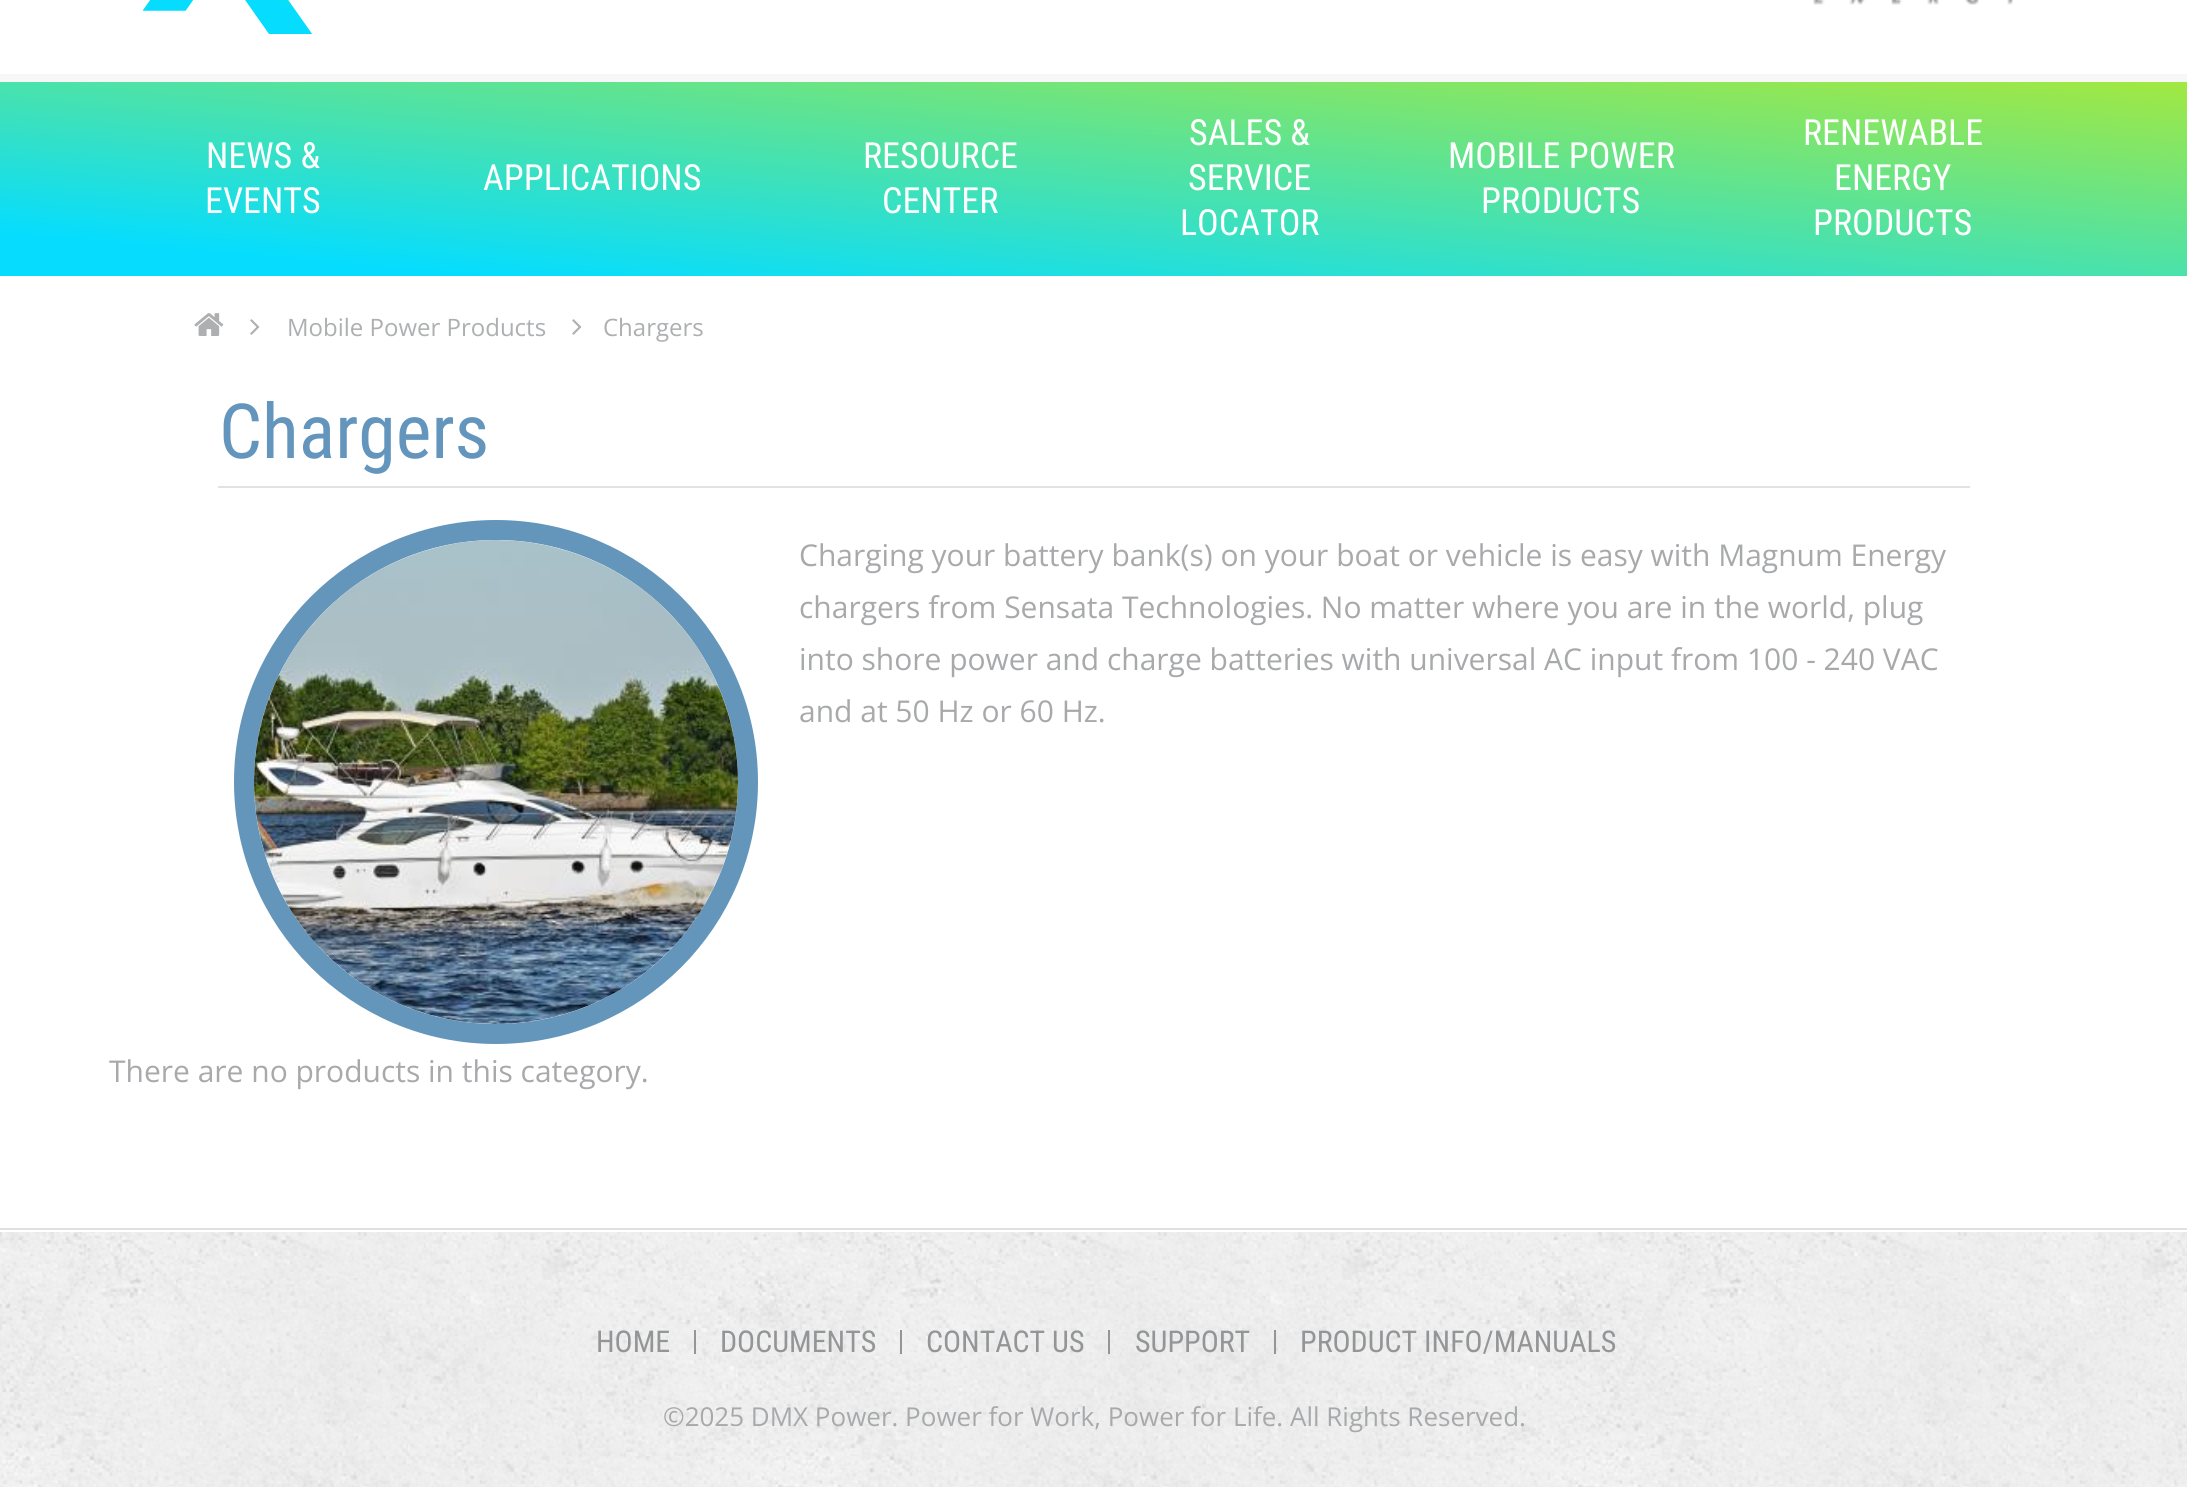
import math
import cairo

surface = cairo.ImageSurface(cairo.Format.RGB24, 2187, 1487)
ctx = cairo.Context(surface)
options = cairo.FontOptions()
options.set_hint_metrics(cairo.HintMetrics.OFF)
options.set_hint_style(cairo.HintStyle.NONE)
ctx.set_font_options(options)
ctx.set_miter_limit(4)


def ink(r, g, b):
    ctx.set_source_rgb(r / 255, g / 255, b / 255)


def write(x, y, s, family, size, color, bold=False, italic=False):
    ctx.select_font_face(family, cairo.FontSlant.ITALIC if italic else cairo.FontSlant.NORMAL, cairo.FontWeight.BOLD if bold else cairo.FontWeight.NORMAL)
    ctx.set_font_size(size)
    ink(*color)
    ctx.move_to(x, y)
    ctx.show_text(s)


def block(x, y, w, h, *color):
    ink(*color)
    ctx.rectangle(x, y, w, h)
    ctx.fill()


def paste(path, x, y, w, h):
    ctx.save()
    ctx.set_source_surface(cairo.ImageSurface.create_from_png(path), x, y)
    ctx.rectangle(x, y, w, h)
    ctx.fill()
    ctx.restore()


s1 = dict(family="Roboto Condensed", size=36, color=(255, 255, 255))
s2 = dict(family="Open Sans", size=24, color=(173, 175, 176))
s3 = dict(family="Roboto Condensed", size=76, color=(99, 149, 189))
s4 = dict(family="Open Sans", size=30, color=(168, 169, 171))
s5 = dict(family="Roboto Condensed", size=30, color=(147, 149, 151))
s6 = dict(family="Open Sans", size=26, color=(168, 169, 171))

ink(255, 255, 255)
ctx.paint()
paste("pic1.png", 142, 0, 170, 34)
paste("pic2.png", 1813, 0, 200, 5)
gradient = cairo.LinearGradient(1111, -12, 1077, 370)
gradient.add_color_stop_rgba(0, 0.631, 0.91, 0.259, 1)
gradient.add_color_stop_rgba(0.89, 0.024, 0.867, 0.996, 1)
ctx.set_source(gradient)
ctx.rectangle(0, 82, 2187, 194)
ctx.fill()
block(0, 74, 2187, 8, 247, 247, 247)
write(206, 168, "NEWS &", **s1)
write(205, 213, "EVENTS", **s1)
write(483, 190, "APPLICATIONS", **s1)
write(863, 168, "RESOURCE", **s1)
write(882, 213, "CENTER", **s1)
write(1189, 145, "SALES &", **s1)
write(1188, 190, "SERVICE", **s1)
write(1180, 235, "LOCATOR", **s1)
write(1448, 168, "MOBILE POWER", **s1)
write(1481, 213, "PRODUCTS", **s1)
write(1803, 145, "RENEWABLE", **s1)
write(1834, 190, "ENERGY", **s1)
write(1813, 235, "PRODUCTS", **s1)
paste("pic3.png", 194, 313, 30, 23)
paste("pic4.png", 250, 319, 10, 16)
write(287, 336, "Mobile Power Products", **s2)
paste("pic4.png", 572, 319, 10, 16)
write(603, 336, "Chargers", **s2)
block(218, 486, 1752, 2, 225, 226, 226)
write(219, 458, "Chargers", **s3)
ctx.new_path()
ctx.arc(496, 782, 252, 0, 2 * math.pi)
ink(100, 150, 187)
ctx.set_line_width(20)
ctx.stroke()
paste("pic5.png", 254, 540, 484, 484)
write(799, 566, "Charging your battery bank(s) on your boat or vehicle is easy with Magnum Energy", **s4)
write(799, 618, "chargers from Sensata Technologies. No matter where you are in the world, plug", **s4)
write(799, 670, "into shore power and charge batteries with universal AC input from 100 - 240 VAC", **s4)
write(799, 722, "and at 50 Hz or 60 Hz.", **s4)
write(109, 1082, "There are no products in this category.", **s4)
paste("pic6.png", 0, 1232, 2187, 255)
block(0, 1228, 2187, 2, 224, 224, 224)
block(694, 1330, 2, 24, 147, 149, 151)
write(596, 1352, "HOME", **s5)
block(900, 1330, 2, 24, 147, 149, 151)
write(720, 1352, "DOCUMENTS", **s5)
block(1108, 1330, 2, 24, 147, 149, 151)
write(926, 1352, "CONTACT US", **s5)
block(1274, 1330, 2, 24, 147, 149, 151)
write(1135, 1352, "SUPPORT", **s5)
write(1300, 1352, "PRODUCT INFO/MANUALS", **s5)
write(663, 1426, "©2025 DMX Power. Power for Work, Power for Life. All Rights Reserved.", **s6)
surface.write_to_png("screenshot.png")
